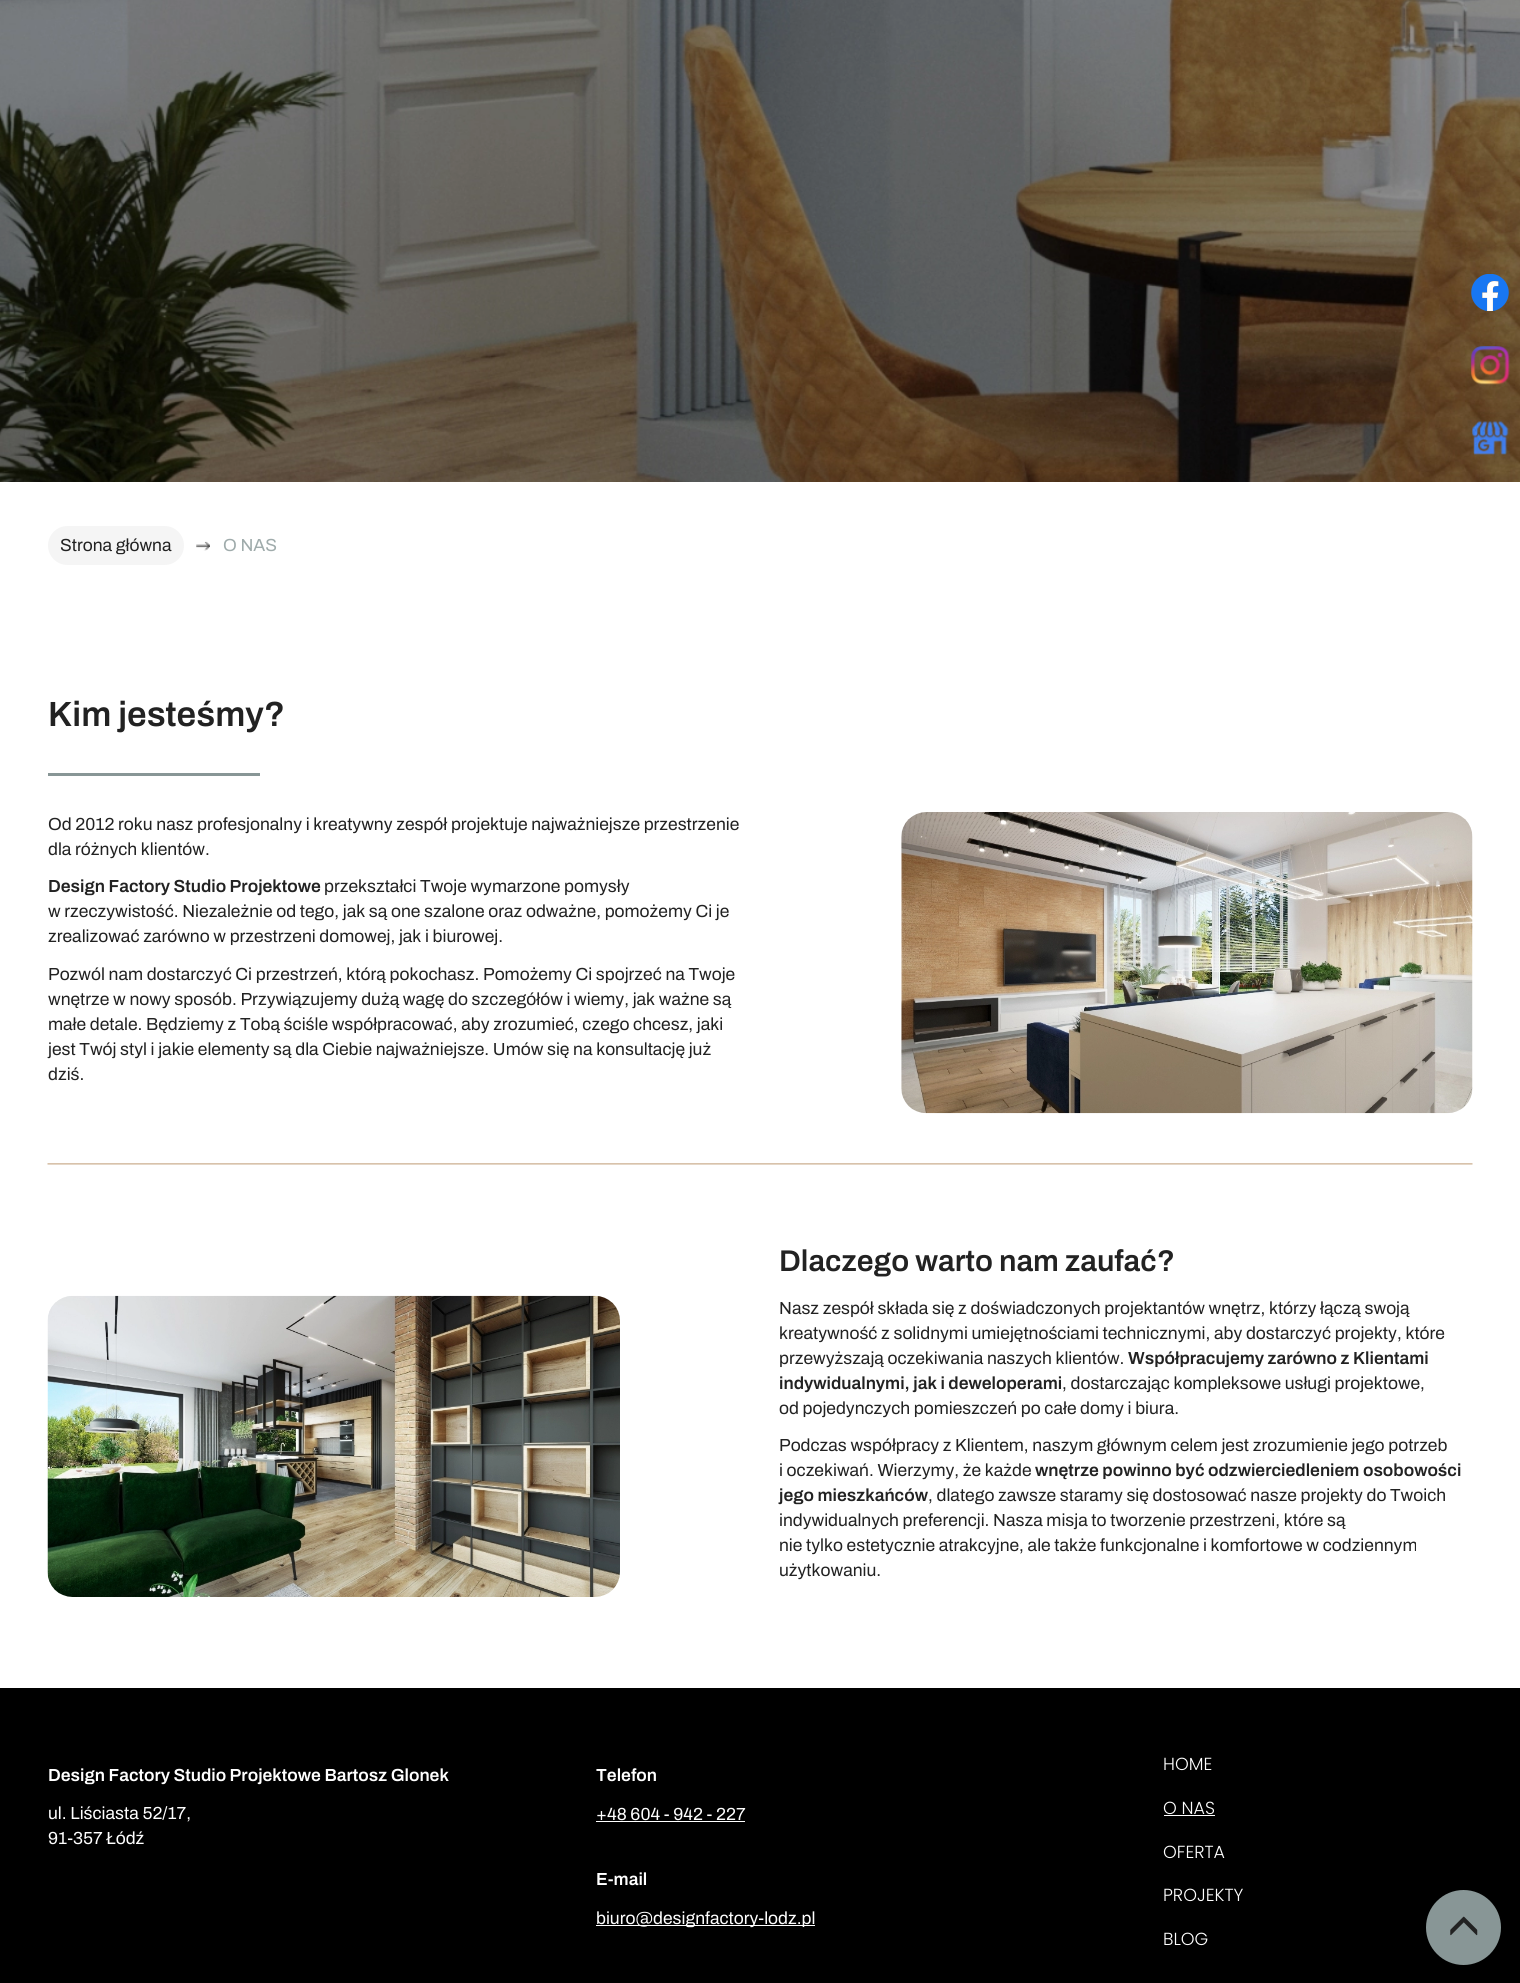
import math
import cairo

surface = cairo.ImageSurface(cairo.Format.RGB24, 1520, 1983)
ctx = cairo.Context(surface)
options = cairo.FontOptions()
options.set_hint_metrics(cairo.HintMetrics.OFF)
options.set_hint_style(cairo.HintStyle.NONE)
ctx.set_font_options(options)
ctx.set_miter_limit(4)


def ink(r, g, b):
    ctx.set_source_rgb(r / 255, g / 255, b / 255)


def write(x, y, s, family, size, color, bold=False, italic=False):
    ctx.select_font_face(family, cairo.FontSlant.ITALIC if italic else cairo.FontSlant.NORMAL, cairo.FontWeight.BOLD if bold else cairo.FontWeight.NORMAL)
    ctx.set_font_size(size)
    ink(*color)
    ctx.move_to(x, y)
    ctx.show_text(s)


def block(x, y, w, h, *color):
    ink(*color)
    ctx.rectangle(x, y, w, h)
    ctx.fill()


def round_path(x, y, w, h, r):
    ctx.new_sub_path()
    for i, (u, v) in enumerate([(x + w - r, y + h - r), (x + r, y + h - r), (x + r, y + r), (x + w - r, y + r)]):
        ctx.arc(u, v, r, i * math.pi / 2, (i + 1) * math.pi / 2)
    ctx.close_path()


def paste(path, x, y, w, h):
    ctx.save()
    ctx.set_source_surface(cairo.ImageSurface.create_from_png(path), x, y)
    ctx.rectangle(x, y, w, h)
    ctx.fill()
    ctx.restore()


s1 = dict(family="Archivo", size=17.5, color=(34, 34, 34))
s2 = dict(family="Archivo", size=17.5, color=(159, 171, 171))
s3 = dict(family="Archivo SemiBold", size=35, color=(34, 34, 34))
s4 = dict(family="Archivo SemiBold", size=17.5, color=(34, 34, 34))
s5 = dict(family="Archivo SemiBold", size=30, color=(34, 34, 34))
s6 = dict(family="Archivo SemiBold", size=17.5, color=(255, 255, 255))
s7 = dict(family="Archivo", size=17.5, color=(255, 255, 255))
s8 = dict(family="Poppins Light", size=17.5, color=(255, 255, 255))

ink(255, 255, 255)
ctx.paint()
paste("pic1.png", 0, 0, 1520, 482)
ink(245, 245, 245)
round_path(48, 526, 136, 39, 19.5)
ctx.fill()
write(60, 551, "Strona główna", **s1)
paste("pic2.png", 196, 541, 14, 10)
write(223, 551, "O NAS", **s2)
write(48, 726, "Kim jesteśmy?", **s3)
block(48, 773, 212, 3, 136, 150, 150)
write(48, 830, "Od 2012 roku nasz profesjonalny i kreatywny zespół projektuje najważniejsze przestrzenie", **s1)
write(48, 855, "dla różnych klientów.", **s1)
write(48, 892, "Design Factory Studio Projektowe", **s4)
write(324, 892, "przekształci Twoje wymarzone pomysły", **s1)
write(48, 917, "w rzeczywistość. Niezależnie od tego, jak są one szalone oraz odważne, pomożemy Ci je", **s1)
write(48, 942, "zrealizować zarówno w przestrzeni domowej, jak i biurowej.", **s1)
write(48, 980, "Pozwól nam dostarczyć Ci przestrzeń, którą pokochasz. Pomożemy Ci spojrzeć na Twoje", **s1)
write(48, 1005, "wnętrze w nowy sposób. Przywiązujemy dużą wagę do szczegółów i wiemy, jak ważne są", **s1)
write(48, 1030, "małe detale. Będziemy z Tobą ściśle współpracować, aby zrozumieć, czego chcesz, jaki", **s1)
write(48, 1055, "jest Twój styl i jakie elementy są dla Ciebie najważniejsze. Umów się na konsultację już", **s1)
write(48, 1080, "dziś.", **s1)
paste("pic3.png", 901, 812, 572, 302)
paste("pic4.png", 47, 1163, 1426, 2)
write(779, 1271, "Dlaczego warto nam zaufać?", **s5)
paste("pic5.png", 47, 1295, 573, 302)
write(779, 1314, "Nasz zespół składa się z doświadczonych projektantów wnętrz, którzy łączą swoją", **s1)
write(779, 1339, "kreatywność z solidnymi umiejętnościami technicznymi, aby dostarczyć projekty, które", **s1)
write(779, 1364, "przewyższają oczekiwania naszych klientów.", **s1)
write(1128, 1364, "Współpracujemy zarówno z Klientami", **s4)
write(779, 1389, "indywidualnymi, jak i deweloperami", **s4)
write(1062, 1389, ", dostarczając kompleksowe usługi projektowe,", **s1)
write(779, 1414, "od pojedynczych pomieszczeń po całe domy i biura.", **s1)
write(779, 1451, "Podczas współpracy z Klientem, naszym głównym celem jest zrozumienie jego potrzeb", **s1)
write(779, 1476, "i oczekiwań. Wierzymy, że każde", **s1)
write(1035, 1476, "wnętrze powinno być odzwierciedleniem osobowości", **s4)
write(779, 1501, "jego mieszkańców", **s4)
write(928, 1501, ", dlatego zawsze staramy się dostosować nasze projekty do Twoich", **s1)
write(779, 1526, "indywidualnych preferencji. Nasza misja to tworzenie przestrzeni, które są", **s1)
write(779, 1551, "nie tylko estetycznie atrakcyjne, ale także funkcjonalne i komfortowe w codziennym", **s1)
write(779, 1576, "użytkowaniu.", **s1)
paste("pic6.png", 1471, 274, 38, 37)
paste("pic7.png", 1471, 346, 39, 39)
paste("pic8.png", 1472, 421, 37, 34)
block(0, 1688, 1520, 295, 0, 0, 0)
write(48, 1781, "Design Factory Studio Projektowe Bartosz Glonek", **s6)
write(48, 1819, "ul. Liściasta 52/17,", **s7)
write(48, 1844, "91-357 Łódź", **s7)
write(596, 1781, "Telefon", **s6)
write(596, 1820, "+48 604 - 942 - 227", **s7)
block(596, 1821, 149, 1, 255, 255, 255)
write(596, 1885, "E-mail", **s6)
block(596, 1925, 219, 1, 255, 255, 255)
write(596, 1924, "biuro@designfactory-lodz.pl", **s7)
write(1163, 1770, "HOME", **s8)
write(1163, 1814, "O NAS", **s8)
block(1164, 1815, 51, 1, 255, 255, 255)
write(1163, 1858, "OFERTA", **s8)
write(1163, 1901, "PROJEKTY", **s8)
write(1163, 1945, "BLOG", **s8)
ink(136, 150, 150)
ctx.new_path()
ctx.arc(1463.5, 1927.5, 37.5, 0, 2 * math.pi)
ctx.fill()
paste("pic9.png", 1450, 1916, 28, 20)
surface.write_to_png("screenshot.png")
